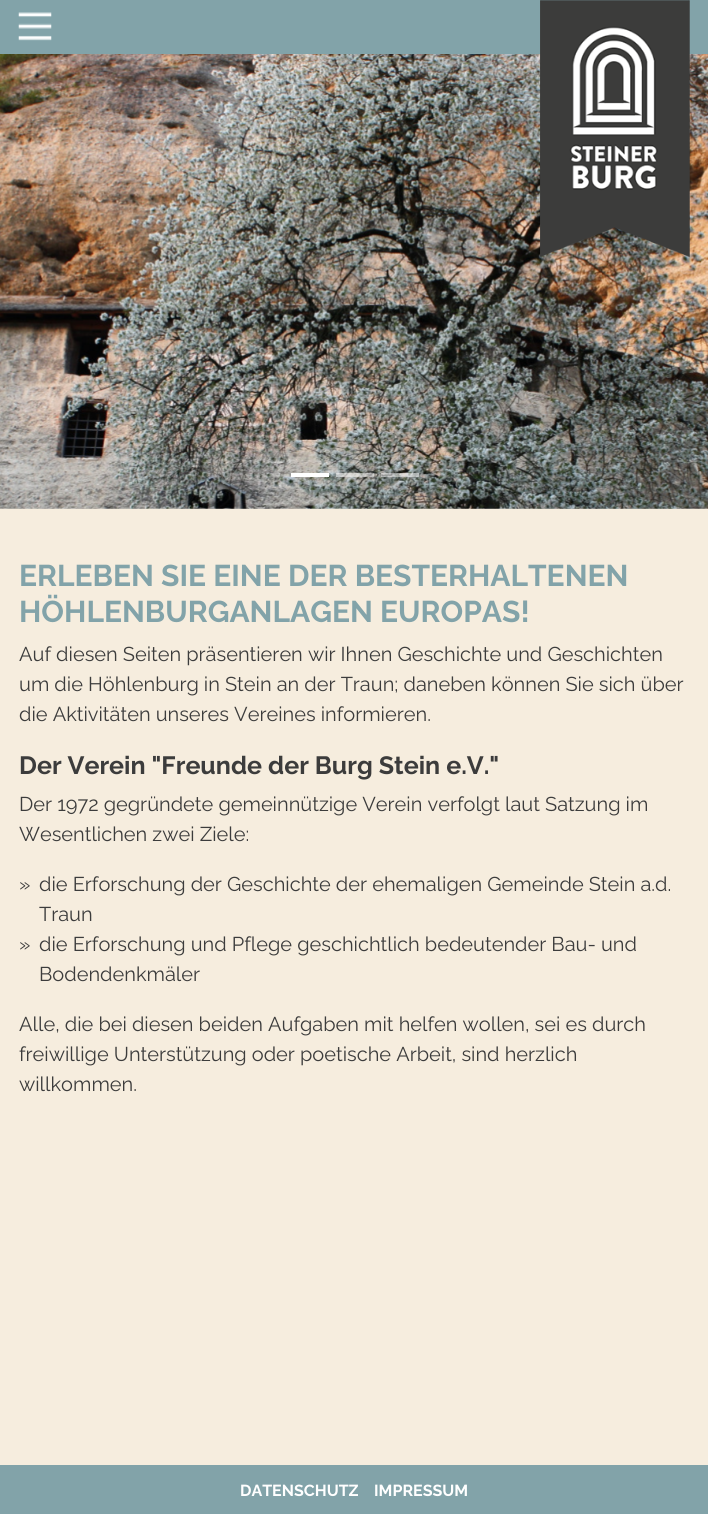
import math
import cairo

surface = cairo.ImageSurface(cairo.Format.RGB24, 708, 1514)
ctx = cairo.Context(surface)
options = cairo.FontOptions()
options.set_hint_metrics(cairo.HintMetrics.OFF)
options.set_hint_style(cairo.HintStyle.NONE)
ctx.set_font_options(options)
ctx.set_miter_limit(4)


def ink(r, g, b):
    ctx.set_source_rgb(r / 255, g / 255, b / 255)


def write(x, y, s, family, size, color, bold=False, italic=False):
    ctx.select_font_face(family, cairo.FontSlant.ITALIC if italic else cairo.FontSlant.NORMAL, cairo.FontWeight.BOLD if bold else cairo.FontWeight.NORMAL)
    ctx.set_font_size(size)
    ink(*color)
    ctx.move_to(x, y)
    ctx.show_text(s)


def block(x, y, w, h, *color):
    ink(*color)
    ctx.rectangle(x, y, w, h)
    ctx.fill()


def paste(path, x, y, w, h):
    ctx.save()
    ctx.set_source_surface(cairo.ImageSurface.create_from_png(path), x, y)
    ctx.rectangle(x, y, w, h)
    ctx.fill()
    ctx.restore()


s1 = dict(family="Raleway Thin", size=30, color=(130, 163, 169))
s2 = dict(family="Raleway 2 Thin", size=20, color=(60, 60, 60))
s3 = dict(family="Raleway Thin", size=25, color=(60, 60, 60))
s4 = dict(family="Raleway Thin", size=16, color=(255, 255, 255))

ink(246, 237, 222)
ctx.paint()
block(0, 0, 708, 54, 130, 163, 169)
paste("pic1.png", 18, 12, 34, 29)
paste("pic3.png", 0, 54, 708, 455)
paste("pic2.png", 540, 0, 150, 258)
block(291, 473, 38, 4, 255, 255, 255)
ctx.set_source_rgba(1, 1, 1, 0.5)
ctx.rectangle(336, 473, 38, 4)
ctx.fill()
ctx.rectangle(381, 473, 38, 4)
ctx.fill()
write(19, 586, "ERLEBEN SIE EINE DER BESTERHALTENEN", **s1)
write(19, 622, "HÖHLENBURGANLAGEN EUROPAS!", **s1)
write(19, 661, "Auf diesen Seiten präsentieren wir Ihnen Geschichte und Geschichten", **s2)
write(19, 691, "um die Höhlenburg in Stein an der Traun; daneben können Sie sich über", **s2)
write(19, 721, "die Aktivitäten unseres Vereines informieren.", **s2)
write(19, 774, "Der Verein \"Freunde der Burg Stein e.V.\"", **s3)
write(19, 811, "Der 1972 gegründete gemeinnützige Verein verfolgt laut Satzung im", **s2)
write(19, 841, "Wesentlichen zwei Ziele:", **s2)
write(19, 891, "»", **s2)
write(39, 891, "die Erforschung der Geschichte der ehemaligen Gemeinde Stein a.d.", **s2)
write(39, 921, "Traun", **s2)
write(19, 951, "»", **s2)
write(39, 951, "die Erforschung und Pflege geschichtlich bedeutender Bau- und", **s2)
write(39, 981, "Bodendenkmäler", **s2)
write(19, 1031, "Alle, die bei diesen beiden Aufgaben mit helfen wollen, sei es durch", **s2)
write(19, 1061, "freiwillige Unterstützung oder poetische Arbeit, sind herzlich", **s2)
write(19, 1091, "willkommen.", **s2)
block(0, 1465, 708, 49, 130, 163, 169)
write(240, 1496, "DATENSCHUTZ", **s4)
write(374, 1496, "IMPRESSUM", **s4)
surface.write_to_png("screenshot.png")
